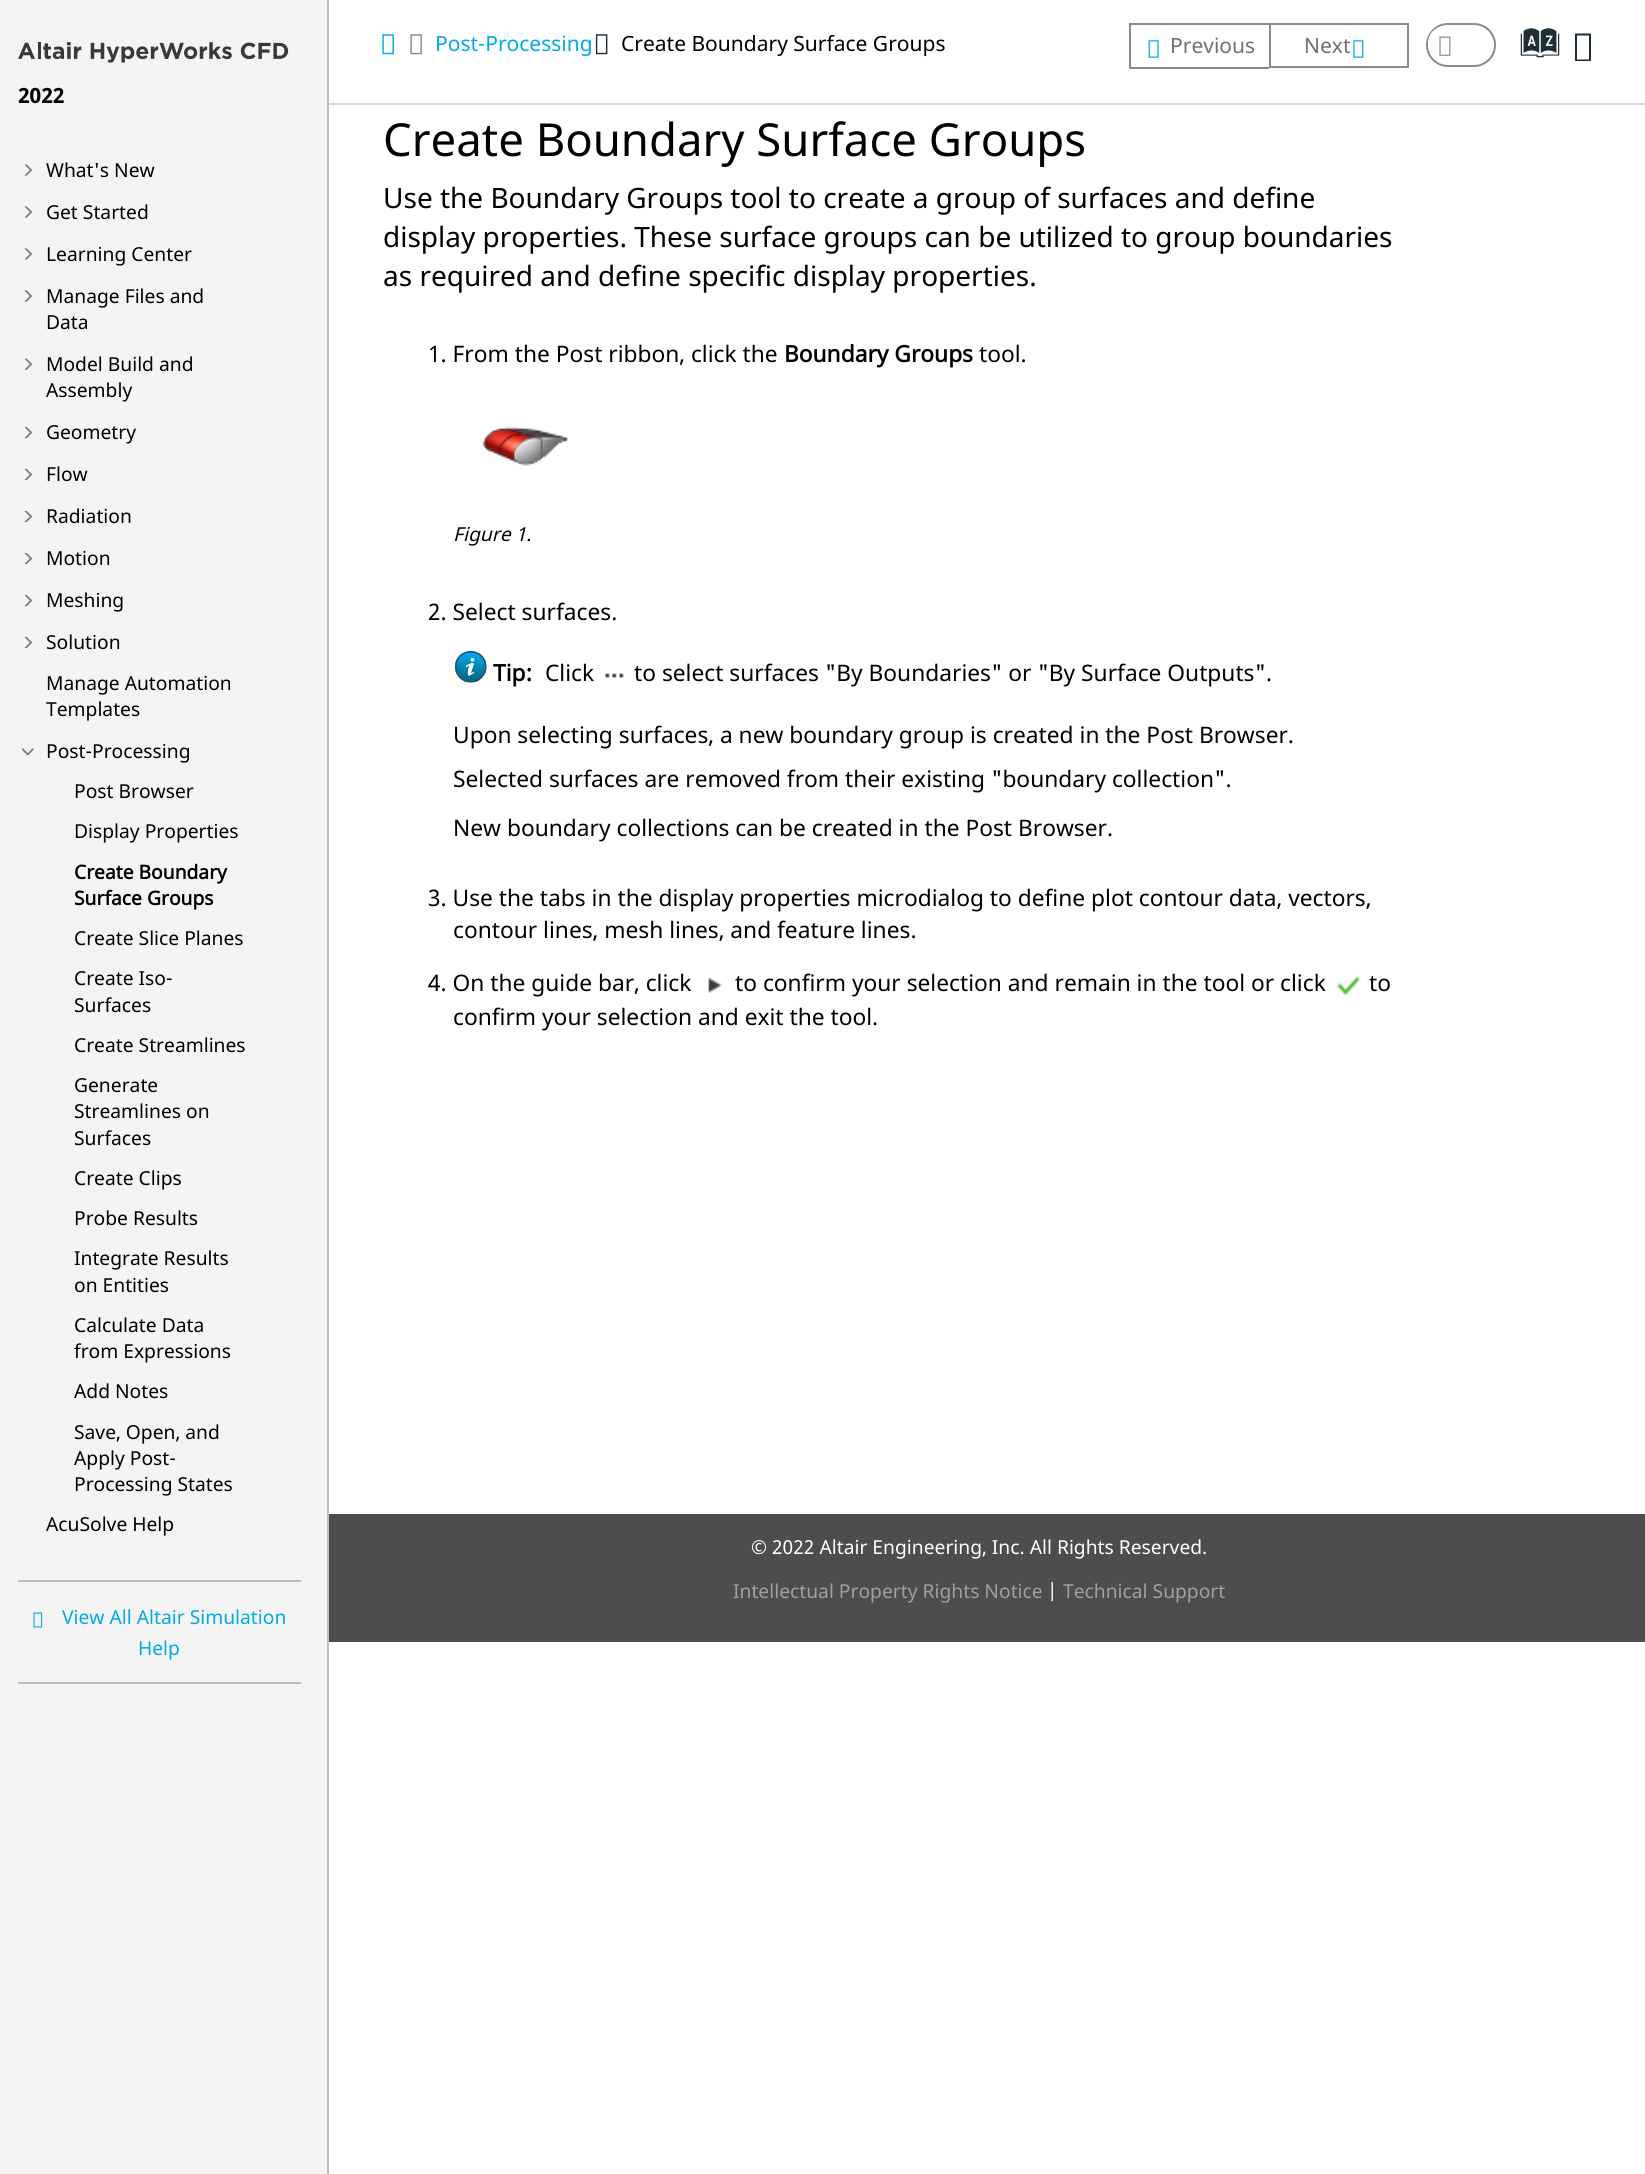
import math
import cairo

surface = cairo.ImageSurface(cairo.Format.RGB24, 1645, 2174)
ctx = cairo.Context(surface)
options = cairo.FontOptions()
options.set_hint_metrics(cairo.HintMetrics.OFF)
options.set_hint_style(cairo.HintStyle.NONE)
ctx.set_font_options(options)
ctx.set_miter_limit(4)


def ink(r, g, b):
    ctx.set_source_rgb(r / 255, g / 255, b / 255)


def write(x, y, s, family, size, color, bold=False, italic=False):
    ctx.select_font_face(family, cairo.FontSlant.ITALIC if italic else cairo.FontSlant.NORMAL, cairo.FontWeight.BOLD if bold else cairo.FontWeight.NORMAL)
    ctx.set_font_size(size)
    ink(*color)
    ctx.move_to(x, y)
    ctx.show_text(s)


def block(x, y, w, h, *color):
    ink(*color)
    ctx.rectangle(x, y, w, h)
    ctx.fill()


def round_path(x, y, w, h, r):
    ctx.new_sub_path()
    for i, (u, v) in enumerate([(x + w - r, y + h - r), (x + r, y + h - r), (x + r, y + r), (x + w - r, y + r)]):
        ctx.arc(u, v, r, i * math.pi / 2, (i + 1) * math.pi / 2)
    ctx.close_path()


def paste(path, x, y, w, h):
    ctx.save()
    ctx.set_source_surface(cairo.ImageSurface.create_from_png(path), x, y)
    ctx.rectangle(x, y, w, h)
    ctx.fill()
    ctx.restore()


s1 = dict(family="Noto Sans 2", size=21, color=(0, 0, 0), bold=True)
s2 = dict(family="Noto Sans", size=19.25, color=(0, 0, 0))
s3 = dict(family="Noto Sans", size=19.25, color=(0, 0, 0), bold=True)
s4 = dict(family="Noto Sans", size=19.25, color=(0, 170, 230))
s5 = dict(family="Noto Sans", size=21, color=(0, 170, 230))
s6 = dict(family="Noto Sans", size=21, color=(0, 0, 0))
s7 = dict(family="Noto Sans", size=21, color=(112, 112, 112))
s8 = dict(family="Oxygen", size=41, color=(29, 46, 56))
s9 = dict(family="Noto Sans", size=45.5, color=(0, 0, 0))
s10 = dict(family="Noto Sans", size=28, color=(0, 0, 0))
s11 = dict(family="Noto Sans", size=22.75, color=(0, 0, 0))
s12 = dict(family="Noto Sans", size=22.75, color=(0, 0, 0), bold=True)
s13 = dict(family="Noto Sans", size=19.25, color=(0, 0, 0), italic=True)
s14 = dict(family="Noto Sans", size=19.25, color=(255, 255, 255))
s15 = dict(family="Noto Sans", size=19.25, color=(159, 159, 159))

ink(255, 255, 255)
ctx.paint()
block(0, 0, 327, 2174, 244, 244, 244)
block(327, 0, 2, 2174, 192, 192, 192)
paste("pic1.png", 18, 42, 271, 21)
write(18, 103, "2022", **s1)
paste("pic2.png", 24, 164, 9, 12)
write(46, 177, "What's New", **s2)
paste("pic2.png", 24, 206, 9, 12)
write(46, 219, "Get Started", **s2)
paste("pic2.png", 24, 248, 9, 12)
write(46, 261, "Learning Center", **s2)
paste("pic2.png", 24, 290, 9, 12)
write(46, 303, "Manage Files and", **s2)
write(46, 329, "Data", **s2)
paste("pic3.png", 24, 358, 9, 12)
write(46, 371, "Model Build and", **s2)
write(46, 397, "Assembly", **s2)
paste("pic4.png", 24, 426, 9, 13)
write(46, 439, "Geometry", **s2)
paste("pic4.png", 24, 468, 9, 13)
write(46, 481, "Flow", **s2)
paste("pic4.png", 24, 510, 9, 13)
write(46, 523, "Radiation", **s2)
paste("pic4.png", 24, 552, 9, 13)
write(46, 565, "Motion", **s2)
paste("pic4.png", 24, 594, 9, 13)
write(46, 607, "Meshing", **s2)
paste("pic4.png", 24, 636, 9, 13)
write(46, 649, "Solution", **s2)
write(46, 690, "Manage Automation", **s2)
write(46, 716, "Templates", **s2)
paste("pic5.png", 22, 748, 12, 8)
write(46, 758, "Post-Processing", **s2)
write(74, 798, "Post Browser", **s2)
write(74, 838, "Display Properties", **s2)
write(74, 879, "Create Boundary", **s3)
write(74, 905, "Surface Groups", **s3)
write(74, 945, "Create Slice Planes", **s2)
write(74, 985, "Create Iso-", **s2)
write(74, 1012, "Surfaces", **s2)
write(74, 1052, "Create Streamlines", **s2)
write(74, 1092, "Generate", **s2)
write(74, 1118, "Streamlines on", **s2)
write(74, 1145, "Surfaces", **s2)
write(74, 1185, "Create Clips", **s2)
write(74, 1225, "Probe Results", **s2)
write(74, 1265, "Integrate Results", **s2)
write(74, 1292, "on Entities", **s2)
write(74, 1332, "Calculate Data", **s2)
write(74, 1358, "from Expressions", **s2)
write(74, 1398, "Add Notes", **s2)
write(74, 1439, "Save, Open, and", **s2)
write(74, 1465, "Apply Post-", **s2)
write(74, 1491, "Processing States", **s2)
write(46, 1531, "AcuSolve Help", **s2)
block(18, 1580, 283, 2, 190, 190, 190)
block(18, 1682, 283, 2, 190, 190, 190)
paste("pic6.png", 33, 1612, 10, 16)
write(62, 1624, "View All Altair Simulation", **s4)
write(138, 1655, "Help", **s4)
block(329, 103, 1316, 2, 216, 216, 216)
paste("pic7.png", 382, 34, 12, 21)
paste("pic8.png", 410, 34, 12, 21)
write(435, 51, "Post-Processing", **s5)
paste("pic9.png", 595, 34, 13, 21)
write(621, 51, "Create Boundary Surface Groups", **s6)
block(1129, 23, 140, 2, 139, 139, 139)
block(1129, 67, 140, 2, 139, 139, 139)
block(1129, 23, 2, 45, 139, 139, 139)
paste("pic10.png", 1148, 40, 11, 18)
write(1170, 53, "Previous", **s7)
ctx.rectangle(1270, 24, 138, 43)
ink(139, 139, 139)
ctx.stroke()
write(1304, 53, "Next", **s7)
paste("pic11.png", 1353, 40, 11, 18)
round_path(1427, 24, 68, 42, 21)
ink(139, 139, 139)
ctx.stroke()
ink(255, 255, 255)
round_path(1428, 26, 35, 34, 17)
ctx.fill()
paste("pic12.png", 1439, 36, 12, 20)
write(1525, 62, "a", **s8)
ctx.new_path()
ctx.move_to(1575, 61)
ctx.line_to(1575, 33.5)
ctx.line_to(1591, 33.5)
ctx.line_to(1591, 61)
ctx.close_path()
ctx.move_to(1577, 59.5)
ctx.line_to(1589, 59.5)
ctx.line_to(1589, 35.5)
ctx.line_to(1577, 35.5)
ctx.close_path()
ctx.fill()
write(383, 156, "Create Boundary Surface Groups", **s9)
write(383, 208, "Use the Boundary Groups tool to create a group of surfaces and define", **s10)
write(383, 247, "display properties. These surface groups can be utilized to group boundaries", **s10)
write(383, 286, "as required and define specific display properties.", **s10)
write(428, 362, "1. From the Post ribbon, click the", **s11)
write(784, 362, "Boundary Groups", **s12)
write(979, 362, "tool.", **s11)
paste("pic13.png", 482, 426, 86, 40)
write(453, 541, "Figure 1.", **s13)
write(428, 620, "2. Select surfaces.", **s11)
paste("pic14.png", 455, 651, 32, 32)
write(493, 681, "Tip:", **s12)
write(545, 681, "Click", **s11)
paste("pic15.png", 605, 673, 19, 5)
write(634, 681, "to select surfaces \"By Boundaries\" or \"By Surface Outputs\".", **s11)
write(453, 743, "Upon selecting surfaces, a new boundary group is created in the Post Browser.", **s11)
write(453, 787, "Selected surfaces are removed from their existing \"boundary collection\".", **s11)
write(453, 836, "New boundary collections can be created in the Post Browser.", **s11)
write(428, 906, "3. Use the tabs in the display properties microdialog to define plot contour data, vectors,", **s11)
write(453, 938, "contour lines, mesh lines, and feature lines.", **s11)
write(428, 991, "4. On the guide bar, click", **s11)
paste("pic16.png", 708, 977, 14, 16)
write(735, 991, "to confirm your selection and remain in the tool or click", **s11)
paste("pic17.png", 1336, 976, 25, 20)
write(1369, 991, "to", **s11)
write(453, 1025, "confirm your selection and exit the tool.", **s11)
block(329, 1514, 1316, 128, 77, 77, 77)
write(751, 1554, "© 2022 Altair Engineering, Inc. All Rights Reserved.", **s14)
write(733, 1598, "Intellectual Property Rights Notice", **s15)
write(1047, 1598, "|", **s14)
write(1063, 1598, "Technical Support", **s15)
surface.write_to_png("screenshot.png")
